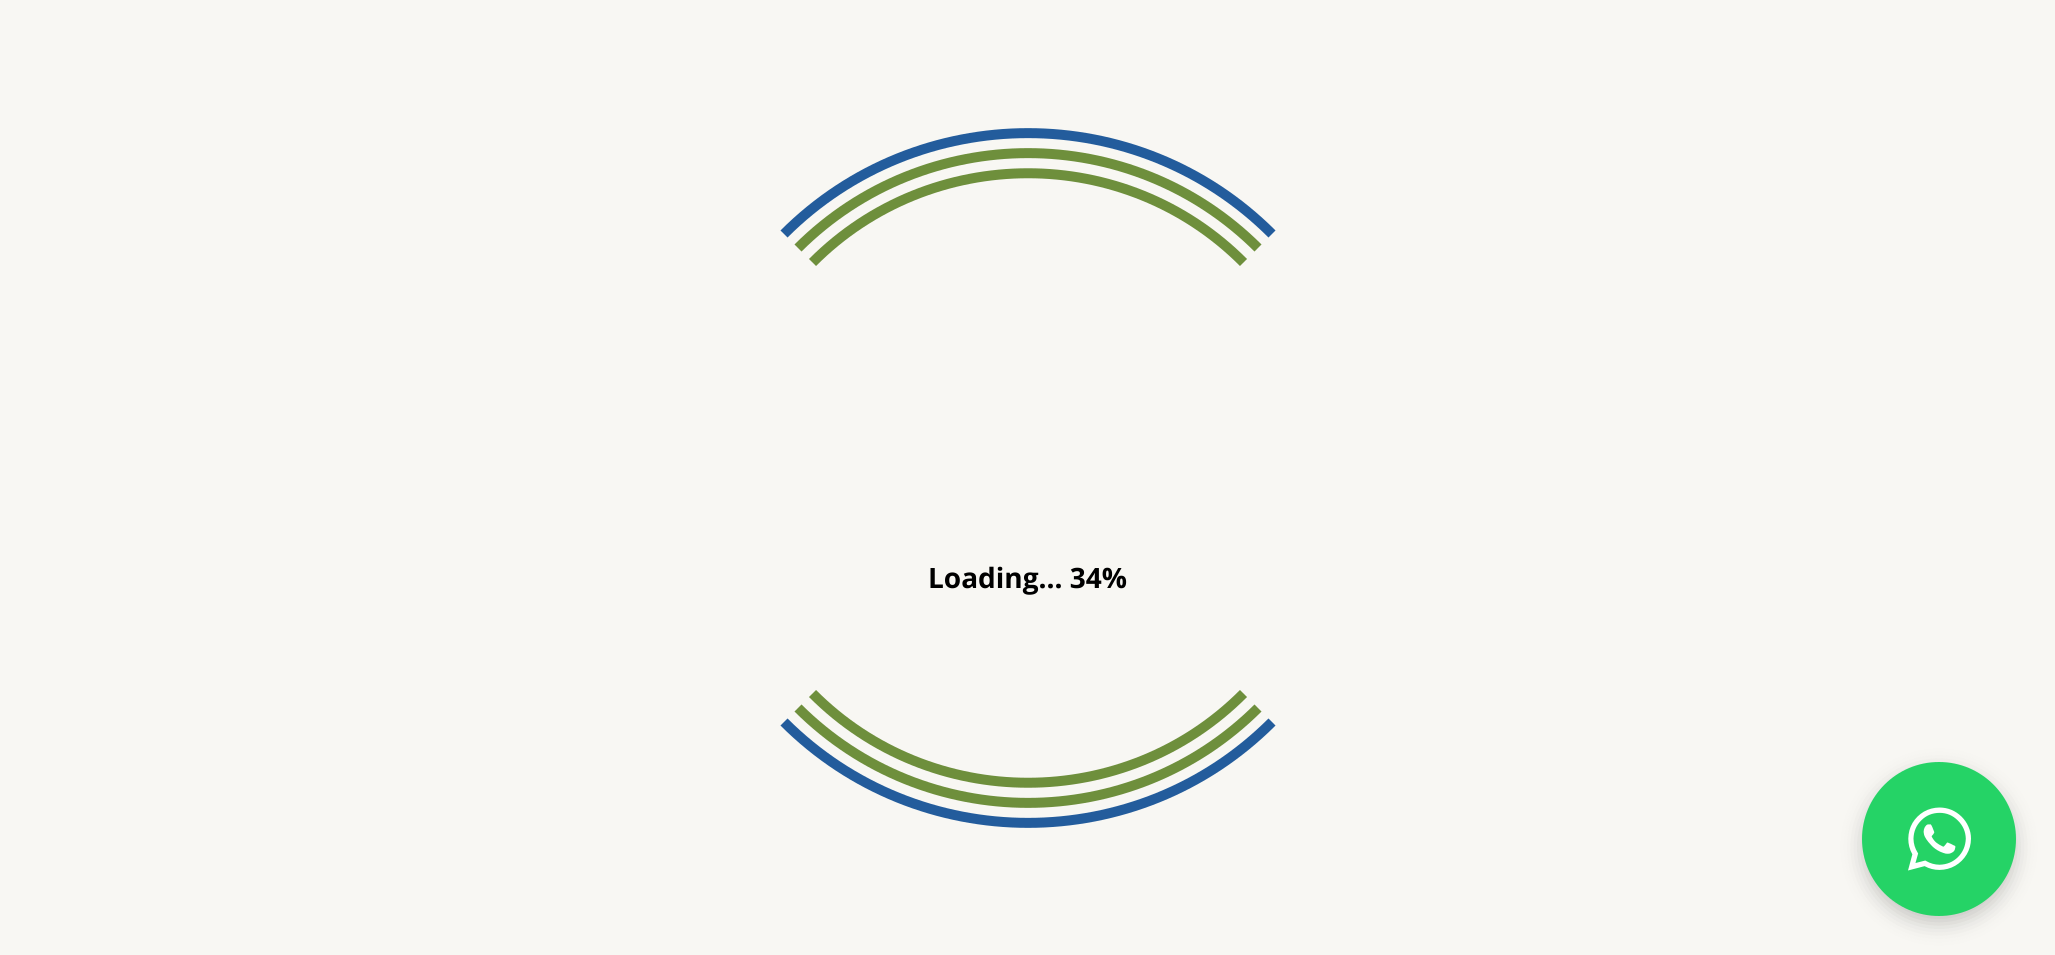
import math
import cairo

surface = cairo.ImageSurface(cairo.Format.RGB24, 2055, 955)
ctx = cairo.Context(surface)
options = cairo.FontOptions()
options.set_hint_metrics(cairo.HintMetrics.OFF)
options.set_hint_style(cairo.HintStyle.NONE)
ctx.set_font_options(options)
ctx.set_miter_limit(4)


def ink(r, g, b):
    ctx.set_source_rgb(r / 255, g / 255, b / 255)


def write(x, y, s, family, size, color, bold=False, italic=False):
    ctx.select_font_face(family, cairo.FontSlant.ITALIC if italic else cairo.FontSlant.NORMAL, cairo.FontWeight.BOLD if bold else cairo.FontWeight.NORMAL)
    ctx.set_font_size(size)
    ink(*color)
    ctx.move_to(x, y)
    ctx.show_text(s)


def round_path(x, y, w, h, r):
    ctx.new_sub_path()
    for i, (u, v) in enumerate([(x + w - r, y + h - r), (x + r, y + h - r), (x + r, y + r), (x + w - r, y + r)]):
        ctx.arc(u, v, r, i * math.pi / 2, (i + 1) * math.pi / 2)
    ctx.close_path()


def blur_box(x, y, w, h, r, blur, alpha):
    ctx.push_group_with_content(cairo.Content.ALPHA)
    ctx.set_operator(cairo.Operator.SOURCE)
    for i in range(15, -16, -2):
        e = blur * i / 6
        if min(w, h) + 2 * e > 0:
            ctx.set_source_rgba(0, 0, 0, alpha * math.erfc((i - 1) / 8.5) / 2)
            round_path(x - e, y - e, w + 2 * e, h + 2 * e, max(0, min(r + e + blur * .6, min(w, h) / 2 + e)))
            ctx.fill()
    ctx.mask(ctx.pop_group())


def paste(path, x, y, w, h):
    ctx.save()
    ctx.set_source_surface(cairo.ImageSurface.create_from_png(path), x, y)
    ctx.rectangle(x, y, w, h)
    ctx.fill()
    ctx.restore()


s1 = dict(family="Open Sans", size=28, color=(0, 0, 0), bold=True)

ink(248, 247, 243)
ctx.paint()
ctx.new_path()
ctx.move_to(784, 234)
ctx.curve_to(918.5, 99.5, 1137.5, 99.5, 1272, 234)
ink(35, 92, 156)
ctx.set_line_width(10)
ctx.stroke()
ctx.new_path()
ctx.move_to(1272, 722)
ctx.curve_to(1137.5, 856.5, 918.5, 856.5, 784, 722)
ctx.stroke()
ctx.new_path()
ctx.move_to(798, 248)
ctx.curve_to(925, 121.5, 1131, 121.5, 1258, 248)
ink(110, 143, 60)
ctx.stroke()
ctx.new_path()
ctx.move_to(1258, 708)
ctx.curve_to(1131, 834.5, 925, 834.5, 798, 708)
ctx.stroke()
ctx.new_path()
ctx.move_to(812.5, 262.5)
ctx.curve_to(931, 143.5, 1125, 143.5, 1243.5, 262.5)
ctx.stroke()
ctx.new_path()
ctx.move_to(1243.5, 693.5)
ctx.curve_to(1125, 812.5, 931, 812.5, 812.5, 693.5)
ctx.stroke()
write(928, 588, "Loading... 34%", **s1)
ink(0, 0, 0)
blur_box(1862, 770, 154, 154, 77, 10, 0.2)
ink(37, 211, 102)
ctx.arc(1939, 839, 77, 0, 2 * math.pi)
ctx.fill()
paste("pic1.png", 1908, 807, 63, 64)
surface.write_to_png("screenshot.png")
